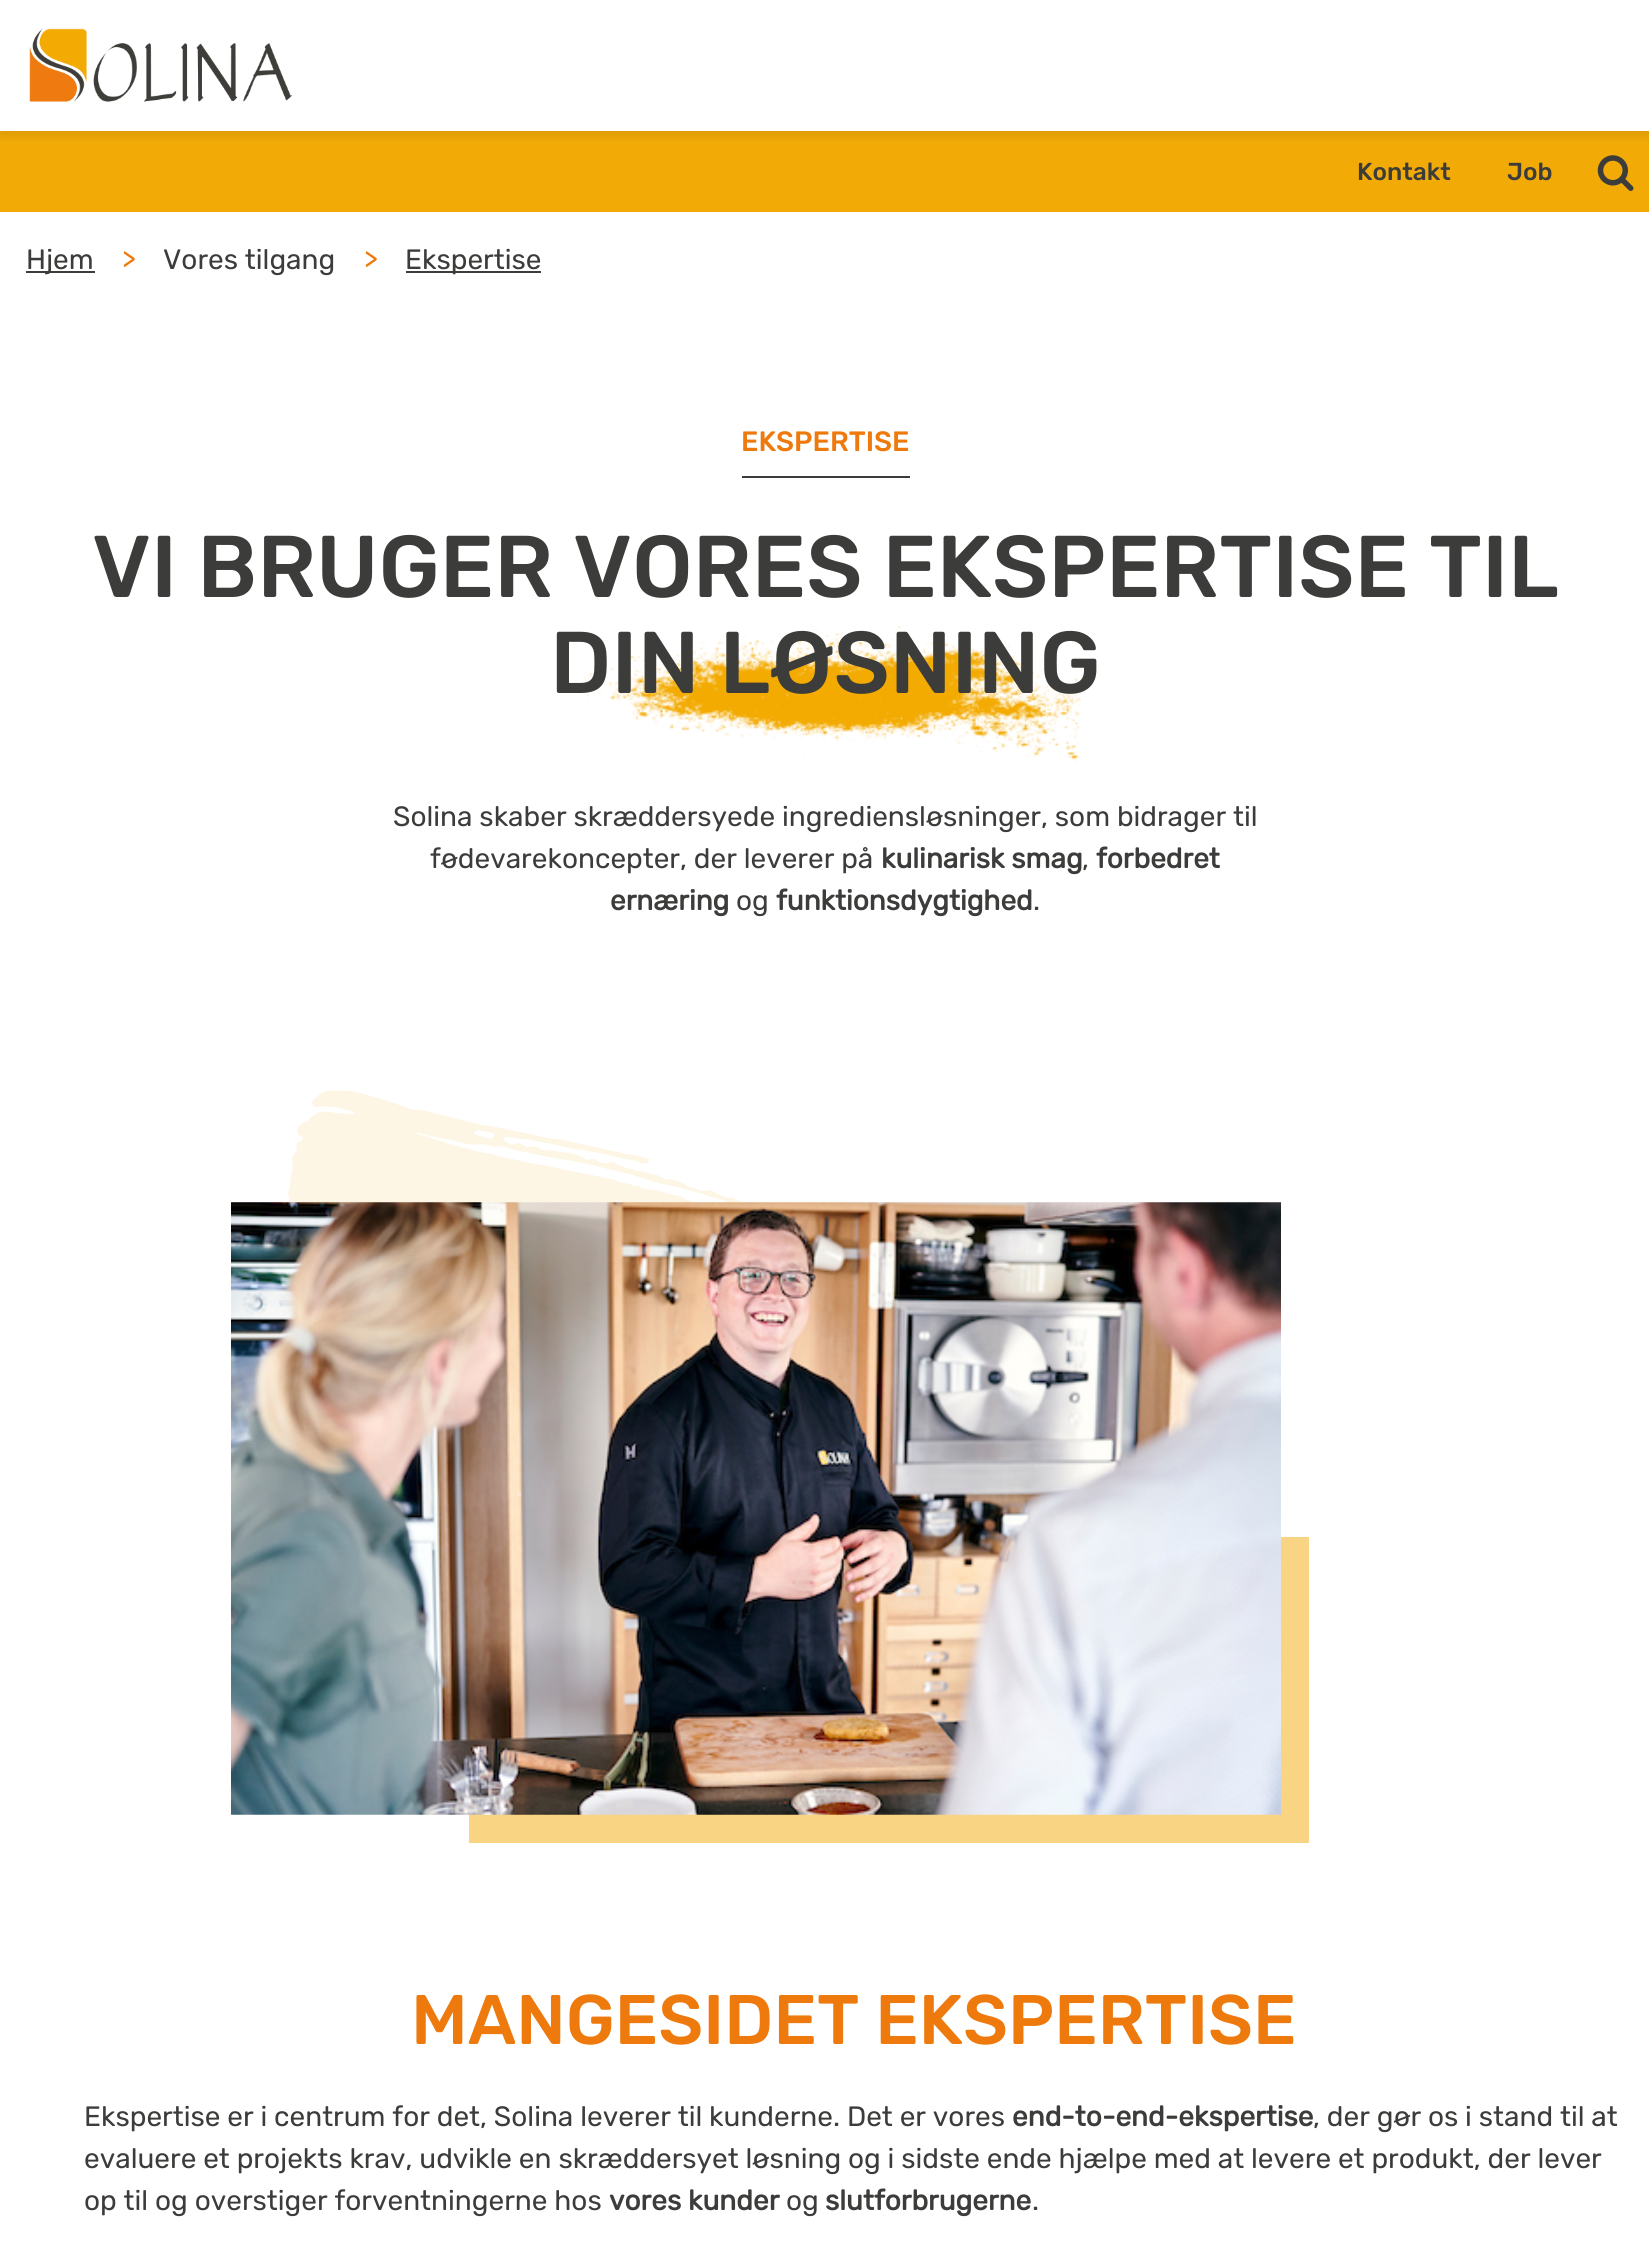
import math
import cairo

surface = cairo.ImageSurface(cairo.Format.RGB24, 1649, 2251)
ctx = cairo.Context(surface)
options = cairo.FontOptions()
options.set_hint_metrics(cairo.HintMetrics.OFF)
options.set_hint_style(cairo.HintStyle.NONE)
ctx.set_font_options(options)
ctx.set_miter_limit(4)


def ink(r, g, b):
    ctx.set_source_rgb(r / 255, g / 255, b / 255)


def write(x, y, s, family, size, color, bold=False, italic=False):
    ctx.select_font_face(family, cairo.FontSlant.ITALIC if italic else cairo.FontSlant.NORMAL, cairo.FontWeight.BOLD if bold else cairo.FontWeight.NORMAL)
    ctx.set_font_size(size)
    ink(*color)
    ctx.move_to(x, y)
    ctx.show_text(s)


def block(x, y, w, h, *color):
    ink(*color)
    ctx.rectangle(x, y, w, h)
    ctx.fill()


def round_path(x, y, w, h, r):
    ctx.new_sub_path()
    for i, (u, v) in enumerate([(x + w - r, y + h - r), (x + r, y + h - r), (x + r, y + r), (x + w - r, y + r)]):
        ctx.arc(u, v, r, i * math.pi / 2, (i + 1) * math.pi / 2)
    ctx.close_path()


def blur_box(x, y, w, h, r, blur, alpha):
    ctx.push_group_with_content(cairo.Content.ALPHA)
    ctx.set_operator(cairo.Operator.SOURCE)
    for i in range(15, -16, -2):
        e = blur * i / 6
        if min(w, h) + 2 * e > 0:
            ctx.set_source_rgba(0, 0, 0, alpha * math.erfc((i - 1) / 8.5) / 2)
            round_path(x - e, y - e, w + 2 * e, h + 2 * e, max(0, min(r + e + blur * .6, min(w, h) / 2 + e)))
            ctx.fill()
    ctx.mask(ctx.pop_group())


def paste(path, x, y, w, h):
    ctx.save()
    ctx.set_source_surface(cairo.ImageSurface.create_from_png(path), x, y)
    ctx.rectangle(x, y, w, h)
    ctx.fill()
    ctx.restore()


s1 = dict(family="Rubik Medium", size=24.5, color=(60, 60, 59))
s2 = dict(family="Rubik Light", size=28, color=(60, 60, 59))
s3 = dict(family="Rubik Light", size=28, color=(238, 122, 13))
s4 = dict(family="Rubik Medium", size=28, color=(238, 122, 13))
s5 = dict(family="Rubik Medium", size=87.5, color=(60, 60, 59))
s6 = dict(family="Rubik", size=28, color=(60, 60, 59), bold=True)
s7 = dict(family="Rubik Medium", size=70, color=(238, 122, 13))

ink(255, 255, 255)
ctx.paint()
block(0, 131, 1649, 81, 242, 170, 7)
ctx.save()
ctx.rectangle(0, 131, 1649, 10)
ctx.clip()
ink(0, 0, 0)
blur_box(0, 0, 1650, 131, 0, 9, 0.16)
ctx.restore()
paste("pic1.png", 29, 28, 264, 74)
write(1357, 180, "Kontakt", **s1)
write(1507, 180, "Job", **s1)
paste("pic2.png", 1597, 155, 37, 36)
block(26, 271, 69, 2, 60, 60, 59)
write(26, 269, "Hjem", **s2)
write(122, 269, ">", **s3)
write(163, 269, "Vores tilgang", **s2)
write(364, 269, ">", **s3)
block(406, 271, 135, 2, 60, 60, 59)
write(405, 269, "Ekspertise", **s2)
write(741, 451, "EKSPERTISE", **s4)
block(742, 476, 168, 2, 60, 60, 59)
write(92, 597, "VI BRUGER VORES EKSPERTISE TIL", **s5)
paste("pic3.png", 583, 626, 498, 137)
write(550, 693, "DIN LØSNING", **s5)
write(393, 826, "Solina skaber skræddersyede ingrediensløsninger, som bidrager til", **s2)
write(430, 868, "fødevarekoncepter, der leverer på", **s2)
write(881, 868, "kulinarisk smag", **s6)
write(1082, 868, ",", **s2)
write(1096, 868, "forbedret", **s6)
write(610, 910, "ernæring", **s6)
write(736, 910, "og", **s2)
write(776, 910, "funktionsdygtighed", **s6)
write(1033, 910, ".", **s2)
block(469, 1537, 840, 306, 249, 213, 131)
paste("pic4.png", 287, 1090, 795, 725)
paste("pic5.png", 231, 1202, 1050, 613)
write(411, 2044, "MANGESIDET EKSPERTISE", **s7)
write(84, 2126, "Ekspertise er i centrum for det, Solina leverer til kunderne. Det er vores", **s2)
write(1012, 2126, "end-to-end-ekspertise", **s6)
write(1313, 2126, ", der gør os i stand til at", **s2)
write(84, 2168, "evaluere et projekts krav, udvikle en skræddersyet løsning og i sidste ende hjælpe med at levere et produkt, der lever", **s2)
write(84, 2210, "op til og overstiger forventningerne hos", **s2)
write(609, 2210, "vores kunder", **s6)
write(786, 2210, "og", **s2)
write(825, 2210, "slutforbrugerne", **s6)
write(1032, 2210, ".", **s2)
surface.write_to_png("screenshot.png")
